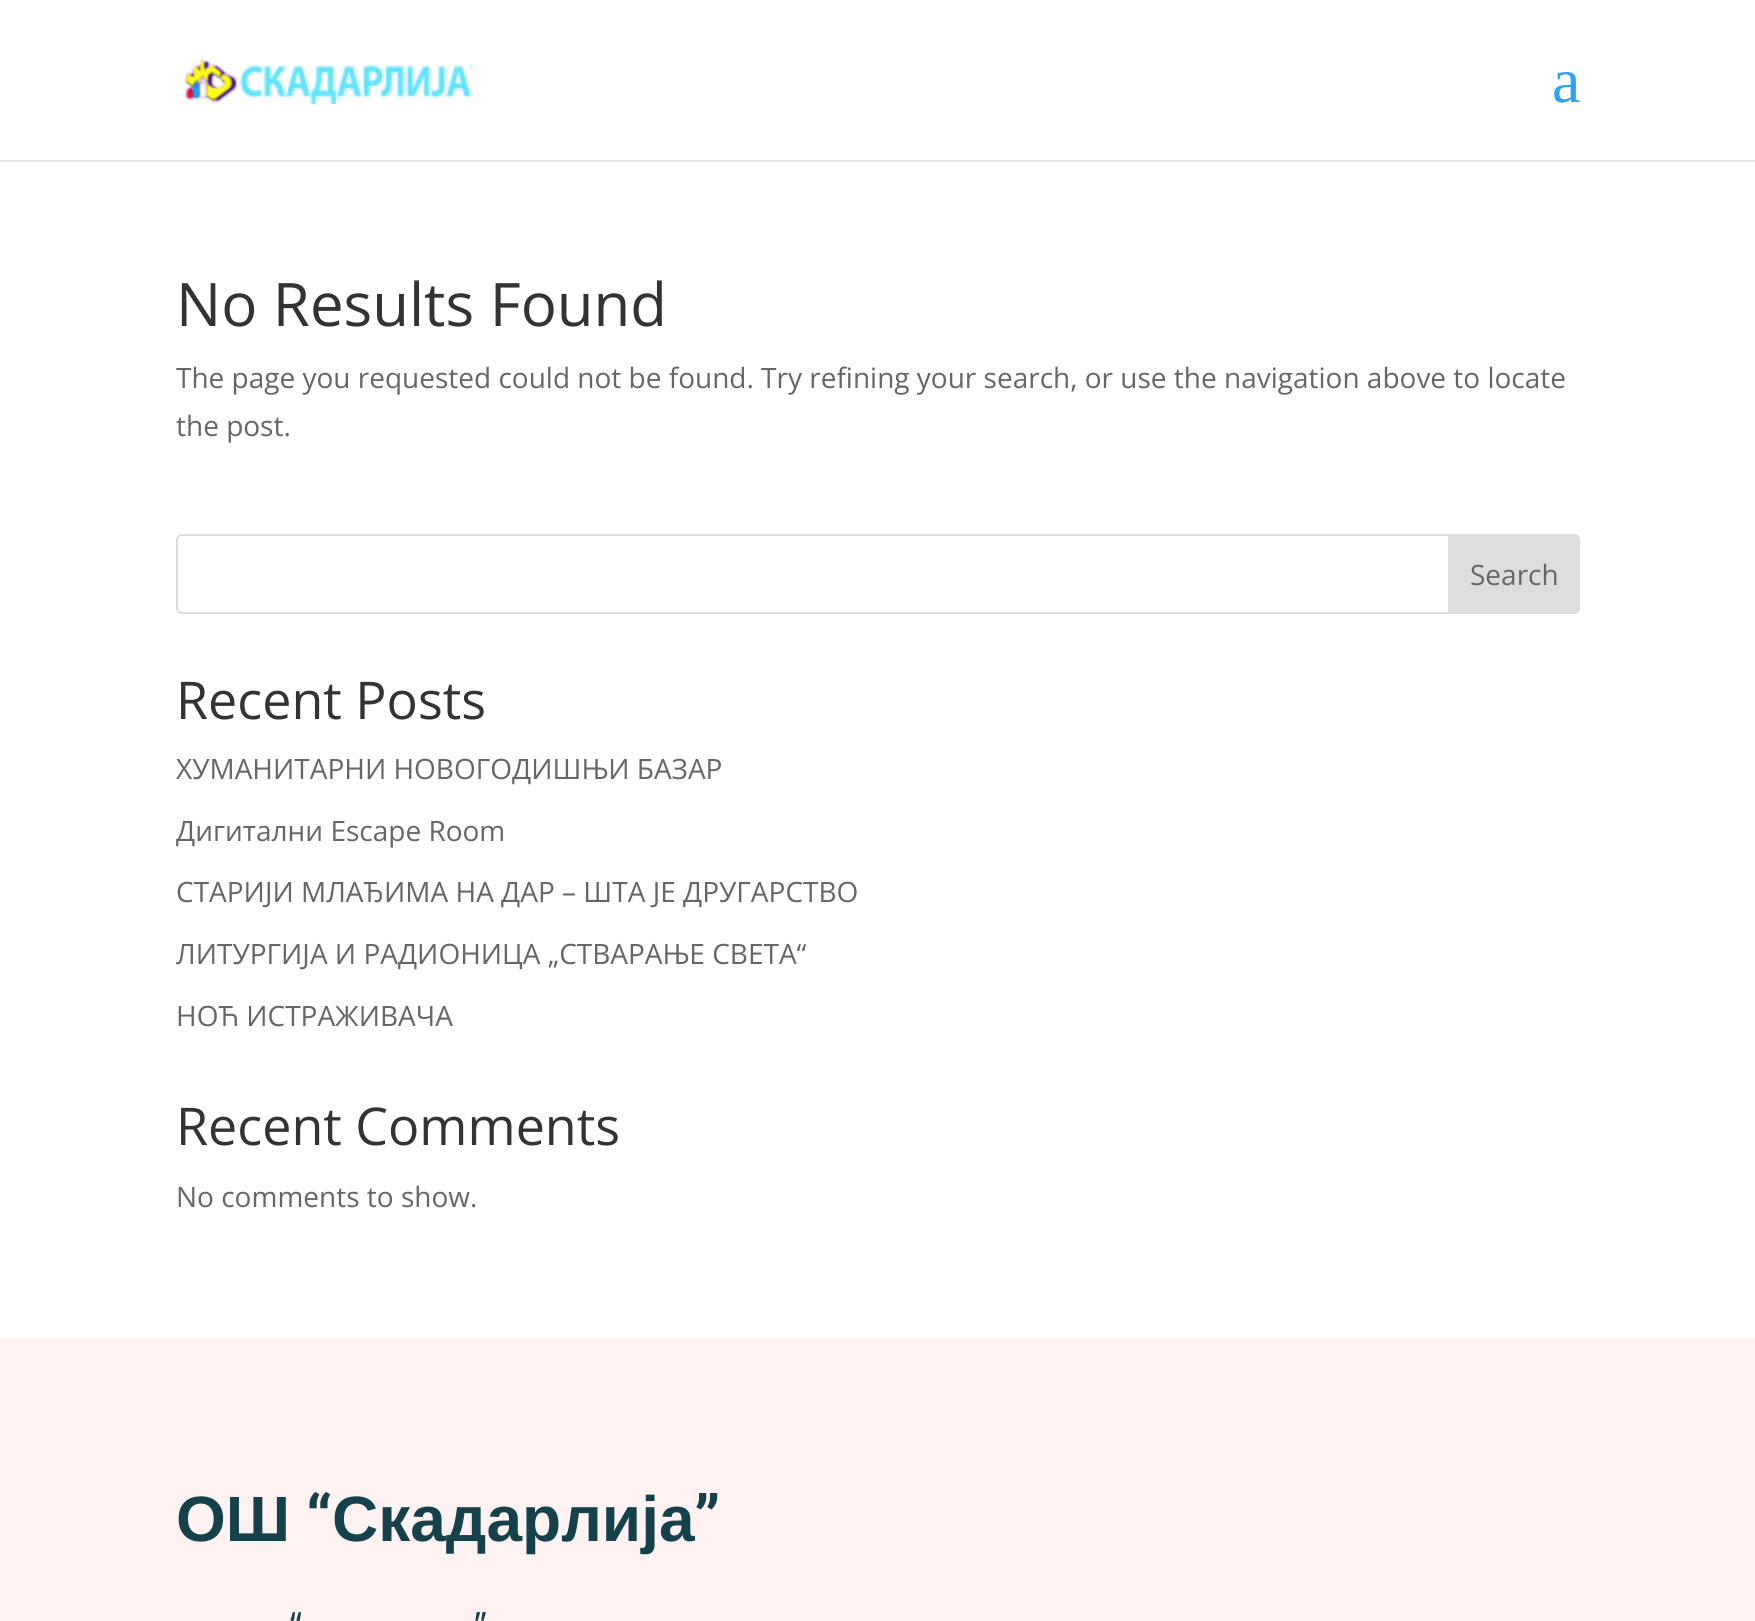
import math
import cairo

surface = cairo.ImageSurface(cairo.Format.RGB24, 1755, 1621)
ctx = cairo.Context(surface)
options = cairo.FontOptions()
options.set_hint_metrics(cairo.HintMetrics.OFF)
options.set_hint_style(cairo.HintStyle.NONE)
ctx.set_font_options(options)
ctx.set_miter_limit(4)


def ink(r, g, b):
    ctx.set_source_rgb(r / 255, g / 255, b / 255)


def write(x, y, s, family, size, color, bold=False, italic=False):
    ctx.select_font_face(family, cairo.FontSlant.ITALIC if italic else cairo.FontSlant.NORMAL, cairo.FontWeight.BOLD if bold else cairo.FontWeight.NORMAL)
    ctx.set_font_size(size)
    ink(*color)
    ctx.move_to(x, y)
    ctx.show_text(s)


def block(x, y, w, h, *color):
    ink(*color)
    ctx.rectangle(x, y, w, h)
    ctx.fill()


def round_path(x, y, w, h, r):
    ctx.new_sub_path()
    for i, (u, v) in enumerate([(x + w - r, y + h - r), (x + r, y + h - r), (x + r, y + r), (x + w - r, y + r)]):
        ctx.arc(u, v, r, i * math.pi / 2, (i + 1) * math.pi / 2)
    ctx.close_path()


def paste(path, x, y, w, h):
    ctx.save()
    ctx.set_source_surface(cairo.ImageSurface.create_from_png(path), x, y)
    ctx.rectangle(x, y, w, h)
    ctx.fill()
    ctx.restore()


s1 = dict(family="Liberation Serif", size=64, color=(46, 163, 242))
s2 = dict(family="Open Sans", size=60, color=(51, 51, 51))
s3 = dict(family="Open Sans", size=28, color=(102, 102, 102))
s4 = dict(family="Open Sans", size=52, color=(51, 51, 51))
s5 = dict(family="Liberation Sans", size=64, color=(21, 65, 74), bold=True)
s6 = dict(family="Heebo", size=64, color=(21, 65, 74), bold=True)
s7 = dict(family="Inter Medium", size=30, color=(21, 65, 74))

ink(255, 255, 255)
ctx.paint()
block(0, 160, 1755, 2, 230, 230, 230)
paste("pic1.png", 183, 59, 290, 45)
write(1552, 102, "a", **s1)
write(176, 326, "No Results Found", **s2)
write(176, 388, "The page you requested could not be found. Try refining your search, or use the navigation above to locate", **s3)
write(176, 436, "the post.", **s3)
round_path(177, 535, 1402, 78, 5)
ink(221, 221, 221)
ctx.stroke()
ctx.new_path()
ctx.move_to(1449, 535)
ctx.line_to(1574, 535)
ctx.curve_to(1577, 535, 1579, 537, 1579, 540)
ctx.line_to(1579, 608)
ctx.curve_to(1579, 611, 1577, 613, 1574, 613)
ctx.line_to(1449, 613)
ctx.close_path()
ctx.fill_preserve()
ctx.stroke()
write(1470, 585, "Search", **s3)
write(176, 719, "Recent Posts", **s4)
write(176, 779, "ХУМАНИТАРНИ НОВОГОДИШЊИ БАЗАР", **s3)
write(176, 841, "Дигитални Escape Room", **s3)
write(176, 902, "СТАРИЈИ МЛАЂИМА НА ДАР – ШТА ЈЕ ДРУГАРСТВО", **s3)
write(176, 964, "ЛИТУРГИЈА И РАДИОНИЦА „СТВАРАЊЕ СВЕТА“", **s3)
write(176, 1026, "НОЋ ИСТРАЖИВАЧА", **s3)
write(176, 1145, "Recent Comments", **s4)
write(176, 1207, "No comments to show.", **s3)
block(0, 1338, 1755, 283, 255, 242, 242)
write(176, 1541, "ОШ", **s5)
write(306, 1541, "“", **s6)
write(332, 1541, "Скадарлија", **s5)
write(694, 1541, "”", **s6)
write(288, 1634, "“", **s7)
write(473, 1634, "”", **s7)
surface.write_to_png("screenshot.png")
